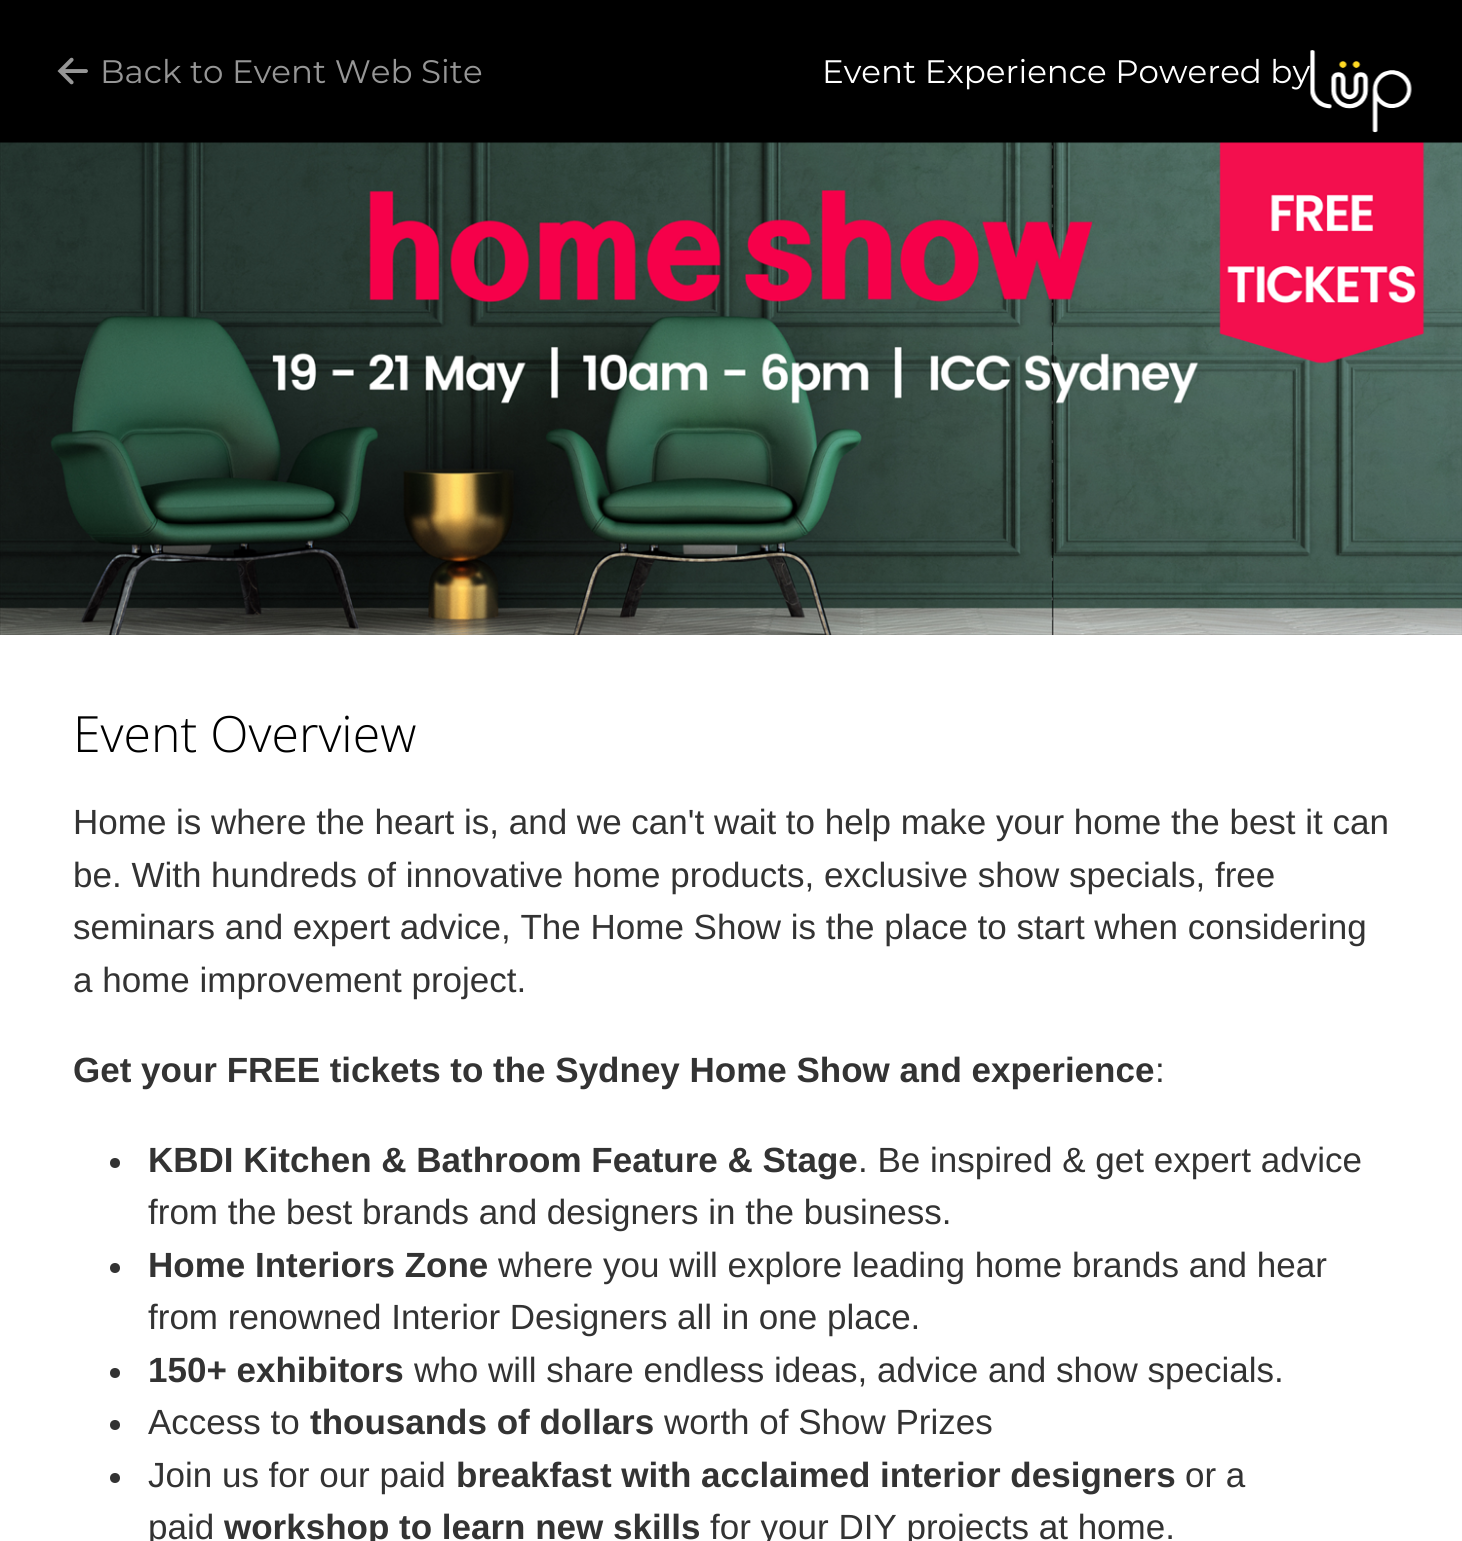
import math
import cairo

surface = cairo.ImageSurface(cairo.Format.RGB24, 1462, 1541)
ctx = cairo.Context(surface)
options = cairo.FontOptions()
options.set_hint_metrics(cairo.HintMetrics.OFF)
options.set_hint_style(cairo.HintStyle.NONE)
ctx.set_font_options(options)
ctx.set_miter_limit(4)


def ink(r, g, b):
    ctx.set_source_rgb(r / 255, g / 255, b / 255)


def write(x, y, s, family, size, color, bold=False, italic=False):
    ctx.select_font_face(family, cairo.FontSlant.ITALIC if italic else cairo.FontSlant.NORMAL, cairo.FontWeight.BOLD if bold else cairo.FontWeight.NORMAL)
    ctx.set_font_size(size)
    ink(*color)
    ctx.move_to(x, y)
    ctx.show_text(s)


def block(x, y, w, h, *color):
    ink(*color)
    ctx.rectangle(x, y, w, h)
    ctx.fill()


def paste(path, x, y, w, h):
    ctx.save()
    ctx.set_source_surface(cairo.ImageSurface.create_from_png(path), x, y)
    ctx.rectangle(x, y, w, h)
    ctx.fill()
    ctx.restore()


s1 = dict(family="Montserrat", size=32.5, color=(150, 150, 150))
s2 = dict(family="Montserrat", size=32.5, color=(255, 255, 255))
s3 = dict(family="Open Sans Light", size=50, color=(0, 0, 0))
s4 = dict(family="Liberation Sans", size=35, color=(51, 51, 51))
s5 = dict(family="Liberation Sans", size=35, color=(51, 51, 51), bold=True)

ink(0, 0, 0)
ctx.paint()
paste("pic1.png", 57, 57, 31, 28)
write(100, 83, "Back to Event Web Site", **s1)
write(822, 83, "Event Experience Powered by", **s2)
paste("pic2.png", 1310, 50, 102, 83)
block(0, 635, 1462, 906, 255, 255, 255)
paste("pic3.png", 0, 142, 1462, 493)
write(73, 752, "Event Overview", **s3)
write(73, 834, "Home is where the heart is, and we can't wait to help make your home the best it can", **s4)
write(73, 887, "be. With hundreds of innovative home products, exclusive show specials, free", **s4)
write(73, 939, "seminars and expert advice, The Home Show is the place to start when considering", **s4)
write(73, 992, "a home improvement project.", **s4)
write(73, 1082, "Get your FREE tickets to the Sydney Home Show and experience", **s5)
write(1155, 1082, ":", **s4)
ctx.new_path()
ctx.arc(115, 1163, 5, 0, 2 * math.pi)
ctx.fill()
write(148, 1172, "KBDI Kitchen & Bathroom Feature & Stage", **s5)
write(858, 1172, ". Be inspired & get expert advice", **s4)
write(148, 1224, "from the best brands and designers in the business.", **s4)
ctx.new_path()
ctx.arc(115, 1268, 5, 0, 2 * math.pi)
ctx.fill()
write(148, 1277, "Home Interiors Zone", **s5)
write(498, 1277, "where you will explore leading home brands and hear", **s4)
write(148, 1329, "from renowned Interior Designers all in one place.", **s4)
ctx.new_path()
ctx.arc(115, 1373, 5, 0, 2 * math.pi)
ctx.fill()
write(148, 1382, "150+ exhibitors", **s5)
write(414, 1382, "who will share endless ideas, advice and show specials.", **s4)
ctx.new_path()
ctx.arc(115, 1425, 5, 0, 2 * math.pi)
ctx.fill()
write(148, 1434, "Access to", **s4)
write(310, 1434, "thousands of dollars", **s5)
write(664, 1434, "worth of Show Prizes", **s4)
ctx.new_path()
ctx.arc(115, 1478, 5, 0, 2 * math.pi)
ctx.fill()
write(148, 1487, "Join us for our paid", **s4)
write(456, 1487, "breakfast with acclaimed interior designers", **s5)
write(1185, 1487, "or a", **s4)
write(148, 1539, "paid", **s4)
write(224, 1539, "workshop to learn new skills", **s5)
write(710, 1539, "for your DIY projects at home.", **s4)
surface.write_to_png("screenshot.png")
